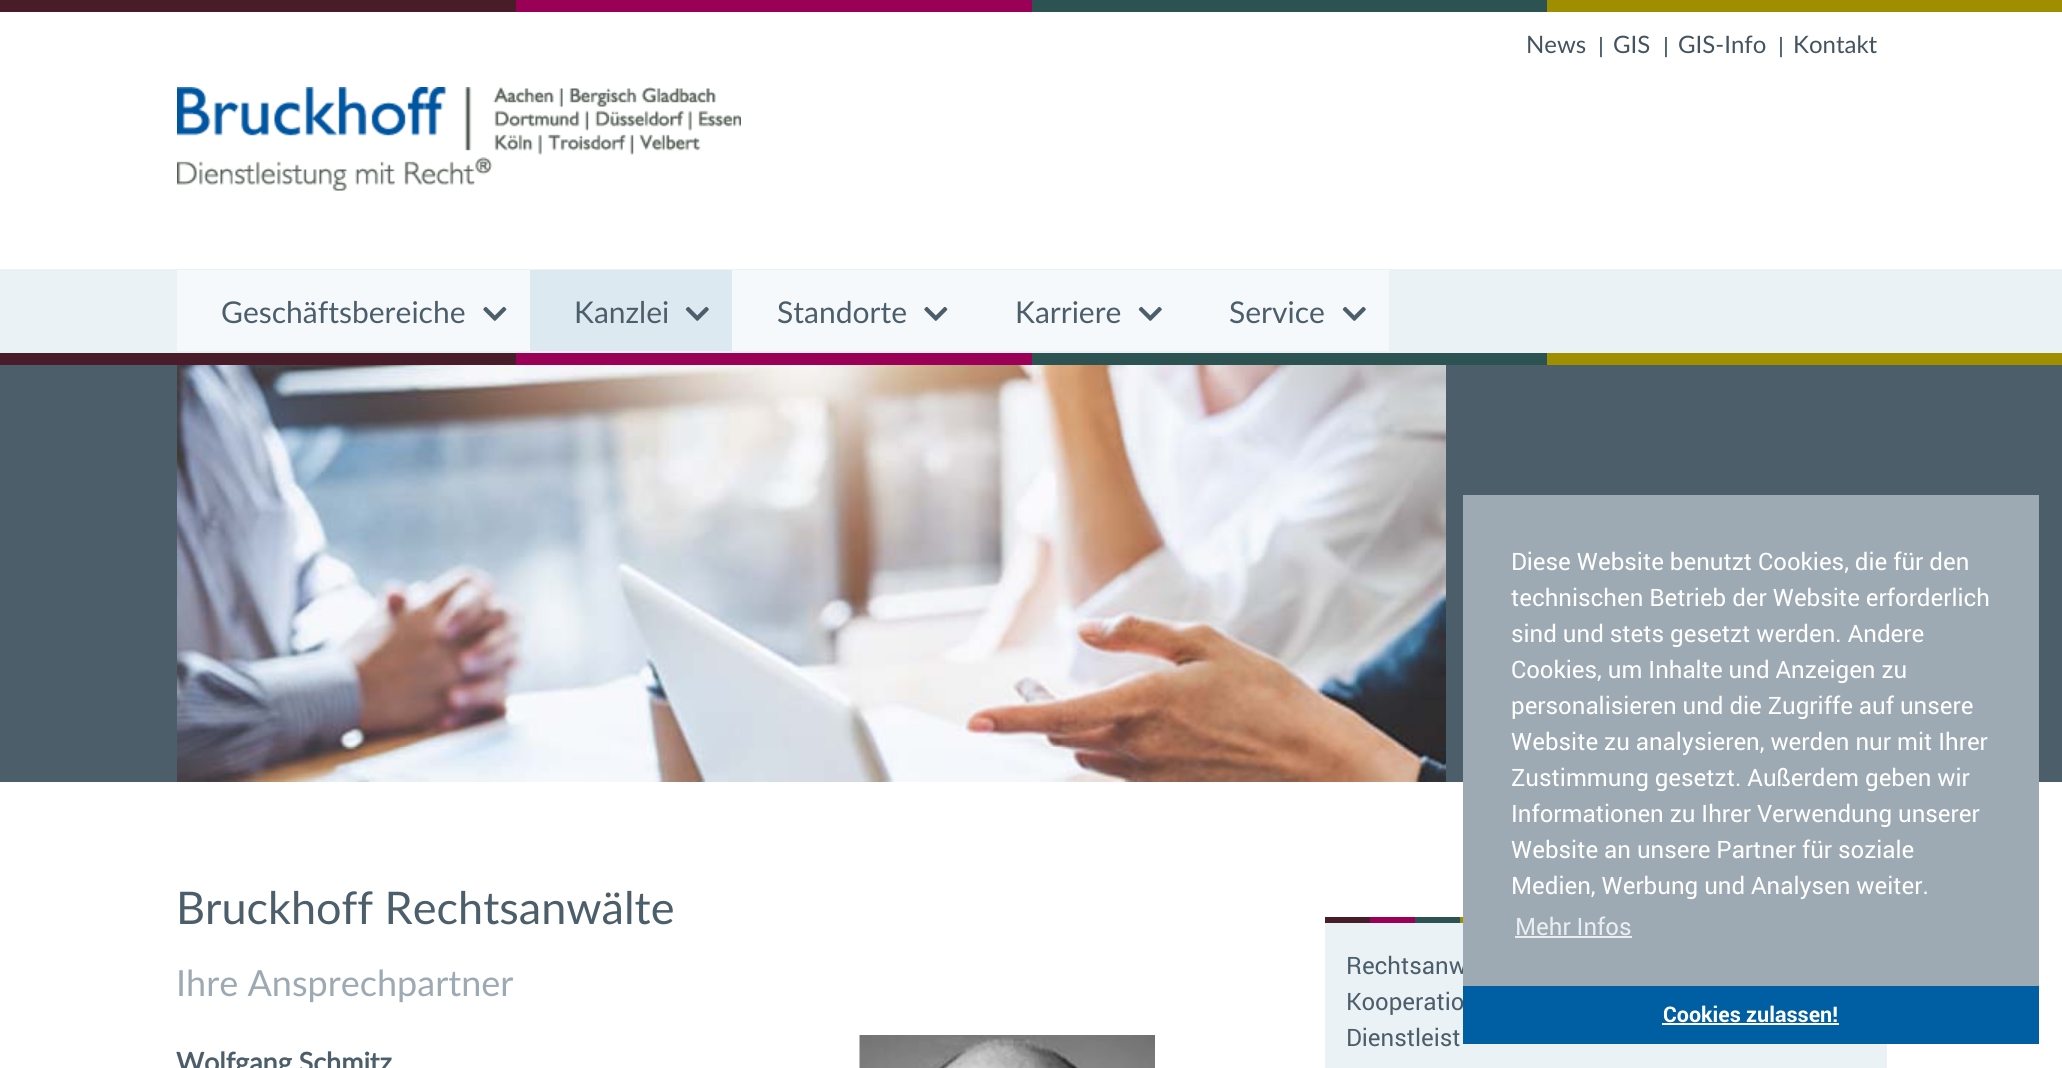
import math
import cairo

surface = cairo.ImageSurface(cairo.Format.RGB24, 2062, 1068)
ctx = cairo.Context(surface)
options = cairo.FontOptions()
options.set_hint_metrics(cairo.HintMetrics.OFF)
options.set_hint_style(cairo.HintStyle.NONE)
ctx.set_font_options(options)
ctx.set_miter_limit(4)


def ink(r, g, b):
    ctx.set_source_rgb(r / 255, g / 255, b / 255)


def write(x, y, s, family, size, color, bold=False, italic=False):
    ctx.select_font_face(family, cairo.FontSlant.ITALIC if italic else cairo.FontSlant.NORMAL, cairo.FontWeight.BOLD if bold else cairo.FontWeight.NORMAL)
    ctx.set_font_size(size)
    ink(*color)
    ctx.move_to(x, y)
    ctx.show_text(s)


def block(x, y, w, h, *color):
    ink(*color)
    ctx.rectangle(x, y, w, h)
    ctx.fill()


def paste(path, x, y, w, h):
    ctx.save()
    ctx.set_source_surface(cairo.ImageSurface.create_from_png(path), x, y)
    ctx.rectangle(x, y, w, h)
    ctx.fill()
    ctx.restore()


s1 = dict(family="Lato", size=24, color=(67, 83, 95))
s2 = dict(family="Roboto", size=24, color=(76, 94, 106))
s3 = dict(family="Lato", size=30, color=(76, 94, 106))
s4 = dict(family="Lato", size=45, color=(76, 94, 106))
s5 = dict(family="Lato", size=36, color=(157, 170, 179))
s6 = dict(family="Lato", size=27, color=(76, 94, 106), bold=True)
s7 = dict(family="Roboto", size=24, color=(255, 255, 255))
s8 = dict(family="Roboto", size=24, color=(235, 238, 240))
s9 = dict(family="Roboto", size=21.5, color=(255, 255, 255), bold=True)

ink(255, 255, 255)
ctx.paint()
block(0, 0, 516, 12, 72, 28, 41)
block(516, 0, 516, 12, 154, 0, 86)
block(1032, 0, 515, 12, 44, 83, 82)
block(1547, 0, 515, 12, 159, 142, 0)
write(1526, 53, "News", **s1)
write(1598, 54, "|", **s2)
write(1613, 53, "GIS", **s1)
write(1663, 54, "|", **s2)
write(1678, 53, "GIS-Info", **s1)
write(1778, 54, "|", **s2)
write(1793, 53, "Kontakt", **s1)
paste("pic1.png", 177, 87, 564, 104)
block(0, 269, 2062, 84, 235, 242, 246)
block(177, 270, 353, 81, 245, 249, 251)
write(221, 323, "Geschäftsbereiche", **s3)
paste("pic2.png", 483, 306, 24, 15)
block(530, 270, 202, 81, 221, 233, 240)
write(574, 323, "Kanzlei", **s3)
paste("pic3.png", 685, 306, 24, 15)
block(732, 270, 657, 81, 245, 249, 251)
write(777, 323, "Standorte", **s3)
paste("pic2.png", 924, 306, 24, 15)
write(1015, 323, "Karriere", **s3)
paste("pic4.png", 1138, 306, 24, 15)
write(1229, 323, "Service", **s3)
paste("pic4.png", 1342, 306, 24, 15)
block(0, 365, 2062, 417, 76, 94, 106)
block(0, 353, 516, 12, 72, 28, 41)
block(516, 353, 516, 12, 154, 0, 86)
block(1032, 353, 515, 12, 44, 83, 82)
block(1547, 353, 515, 12, 159, 142, 0)
paste("pic5.png", 177, 365, 1269, 417)
write(176, 924, "Bruckhoff Rechtsanwälte", **s4)
write(176, 996, "Ihre Ansprechpartner", **s5)
write(176, 1072, "Wolfgang Schmitz", **s6)
paste("pic6.png", 859, 1035, 296, 33)
block(1325, 923, 562, 145, 235, 242, 246)
block(1325, 917, 45, 6, 72, 28, 41)
block(1370, 917, 45, 6, 154, 0, 86)
block(1415, 917, 45, 6, 44, 83, 82)
block(1460, 917, 3, 6, 159, 142, 0)
write(1346, 974, "Rechtsanw", **s2)
write(1346, 1010, "Kooperatio", **s2)
write(1346, 1046, "Dienstleist", **s2)
block(1463, 495, 576, 491, 157, 170, 179)
write(1511, 570, "Diese Website benutzt Cookies, die für den", **s7)
write(1511, 606, "technischen Betrieb der Website erforderlich", **s7)
write(1511, 642, "sind und stets gesetzt werden. Andere", **s7)
write(1511, 678, "Cookies, um Inhalte und Anzeigen zu", **s7)
write(1511, 714, "personalisieren und die Zugriffe auf unsere", **s7)
write(1511, 750, "Website zu analysieren, werden nur mit Ihrer", **s7)
write(1511, 786, "Zustimmung gesetzt. Außerdem geben wir", **s7)
write(1511, 822, "Informationen zu Ihrer Verwendung unserer", **s7)
write(1511, 858, "Website an unsere Partner für soziale", **s7)
write(1511, 894, "Medien, Werbung und Analysen weiter.", **s7)
write(1515, 935, "Mehr Infos", **s8)
block(1515, 936, 117, 2, 235, 238, 240)
block(1463, 986, 576, 58, 0, 94, 162)
write(1663, 1022, "Cookies zulassen!", **s9)
block(1662, 1023, 177, 2, 255, 255, 255)
surface.write_to_png("screenshot.png")
